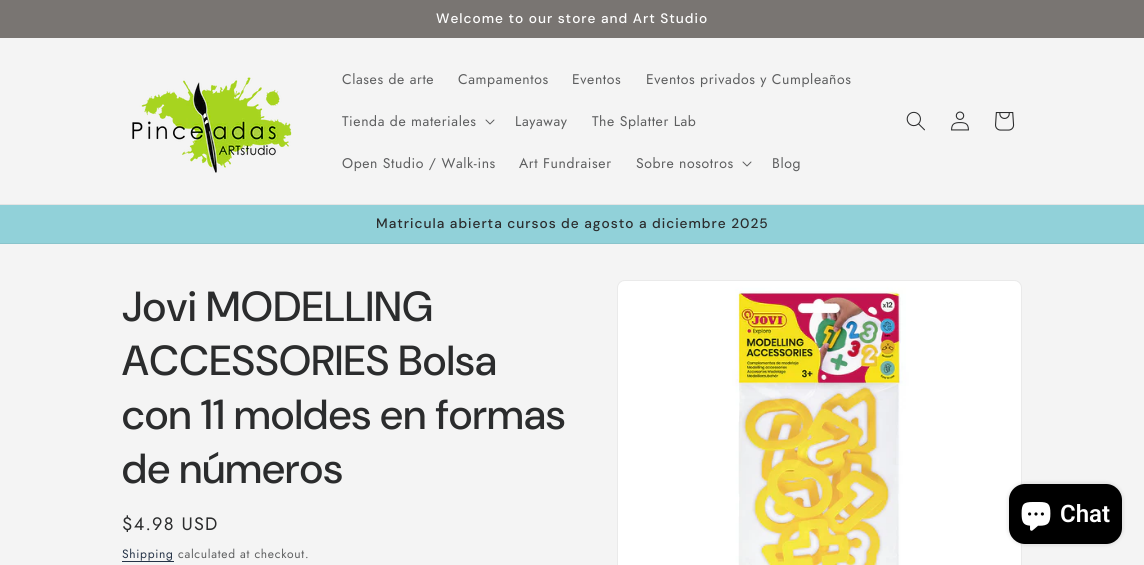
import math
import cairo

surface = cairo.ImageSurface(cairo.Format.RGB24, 1144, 565)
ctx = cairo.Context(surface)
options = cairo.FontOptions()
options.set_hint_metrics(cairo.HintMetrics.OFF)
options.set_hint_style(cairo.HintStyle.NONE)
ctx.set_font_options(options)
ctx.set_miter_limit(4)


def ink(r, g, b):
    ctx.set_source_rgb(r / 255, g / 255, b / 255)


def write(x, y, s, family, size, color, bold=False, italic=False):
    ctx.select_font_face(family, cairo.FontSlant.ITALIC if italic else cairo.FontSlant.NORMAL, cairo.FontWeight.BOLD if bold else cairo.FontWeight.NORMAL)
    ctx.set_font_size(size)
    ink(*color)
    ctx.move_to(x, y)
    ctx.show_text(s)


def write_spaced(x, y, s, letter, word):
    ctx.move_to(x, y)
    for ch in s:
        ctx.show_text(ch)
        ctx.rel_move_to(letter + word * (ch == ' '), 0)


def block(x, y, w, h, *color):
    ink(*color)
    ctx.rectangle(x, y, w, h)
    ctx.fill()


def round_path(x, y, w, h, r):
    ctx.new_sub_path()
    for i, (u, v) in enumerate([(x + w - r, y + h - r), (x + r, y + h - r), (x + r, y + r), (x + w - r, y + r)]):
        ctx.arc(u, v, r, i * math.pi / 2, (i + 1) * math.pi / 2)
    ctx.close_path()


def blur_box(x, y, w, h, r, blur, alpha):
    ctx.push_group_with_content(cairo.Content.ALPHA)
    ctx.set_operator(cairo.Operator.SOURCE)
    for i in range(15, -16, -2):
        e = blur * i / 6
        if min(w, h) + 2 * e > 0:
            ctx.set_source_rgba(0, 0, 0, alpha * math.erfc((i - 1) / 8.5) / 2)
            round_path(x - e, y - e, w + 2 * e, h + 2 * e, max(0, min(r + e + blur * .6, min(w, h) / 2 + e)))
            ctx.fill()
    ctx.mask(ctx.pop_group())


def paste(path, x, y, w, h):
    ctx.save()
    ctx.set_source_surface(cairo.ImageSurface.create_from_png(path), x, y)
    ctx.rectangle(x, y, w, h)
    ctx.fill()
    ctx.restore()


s1 = dict(family="Roboto SemiBold", size=24, color=(255, 255, 255))

ink(244, 244, 244)
ctx.paint()
block(0, 0, 1144, 38, 121, 117, 114)
ctx.select_font_face("DM Sans Medium")
ctx.set_font_size(13.65)
ink(255, 255, 255)
write_spaced(436, 23, "Welcome to our store and Art Studio", 1, 0)
block(0, 204, 1144, 1, 228, 228, 228)
paste("pic1.png", 132, 77, 160, 96)
ctx.select_font_face("Jost")
ctx.set_font_size(14)
ink(93, 94, 95)
write_spaced(342, 84, "Clases de arte", 0.6, 0)
write_spaced(458, 84, "Campamentos", 0.6, 0)
write_spaced(572, 84, "Eventos", 0.6, 0)
write_spaced(646, 84, "Eventos privados y Cumpleaños", 0.6, 0)
write_spaced(342, 126, "Tienda de materiales", 0.6, 0)
paste("pic2.png", 485, 119, 10, 6)
write_spaced(515, 126, "Layaway", 0.6, 0)
write_spaced(592, 126, "The Splatter Lab", 0.6, 0)
write_spaced(342, 168, "Open Studio / Walk-ins", 0.6, 0)
write_spaced(519, 168, "Art Fundraiser", 0.6, 0)
write_spaced(636, 168, "Sobre nosotros", 0.6, 0)
paste("pic2.png", 742, 161, 10, 6)
write_spaced(772, 168, "Blog", 0.6, 0)
paste("pic3.png", 906, 111, 19, 20)
paste("pic4.png", 951, 111, 18, 20)
paste("pic5.png", 995, 112, 20, 19)
block(0, 205, 1144, 38, 145, 209, 217)
block(0, 243, 1144, 1, 137, 196, 203)
ctx.select_font_face("DM Sans Medium")
ctx.set_font_size(13.65)
ink(43, 44, 45)
write_spaced(376, 228, "Matricula abierta cursos de agosto a diciembre 2025", 1, 0)
ctx.select_font_face("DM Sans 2 Medium")
ctx.set_font_size(42)
write_spaced(122, 321, "Jovi MODELLING", 0.6, 0)
write_spaced(122, 375, "ACCESSORIES Bolsa", 0.6, 0)
write_spaced(122, 429, "con 11 moldes en formas", 0.6, 0)
write_spaced(122, 483, "de números", 0.6, 0)
ctx.select_font_face("Jost")
ctx.set_font_size(18)
write_spaced(122, 530, "$4.98 USD", 1.25, 0)
ctx.set_font_size(12)
ink(37, 51, 71)
write_spaced(122, 558, "Shipping", 0.7, 0)
block(122, 561, 52, 1, 37, 51, 71)
ink(93, 94, 95)
write_spaced(178, 558, "calculated at checkout.", 0.7, 0)
round_path(617.5, 280.5, 404, 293, 7.5)
ink(234, 234, 234)
ctx.set_line_width(1)
ctx.stroke()
paste("pic6.png", 618, 281, 403, 284)
ink(0, 0, 0)
blur_box(1009, 484, 113, 60, 16, 2.5, 0.15)
ink(0, 0, 0)
round_path(1009, 484, 113, 60, 16)
ctx.fill()
paste("pic7.png", 1021, 502, 30, 29)
write(1060, 522, "Chat", **s1)
surface.write_to_png("screenshot.png")
